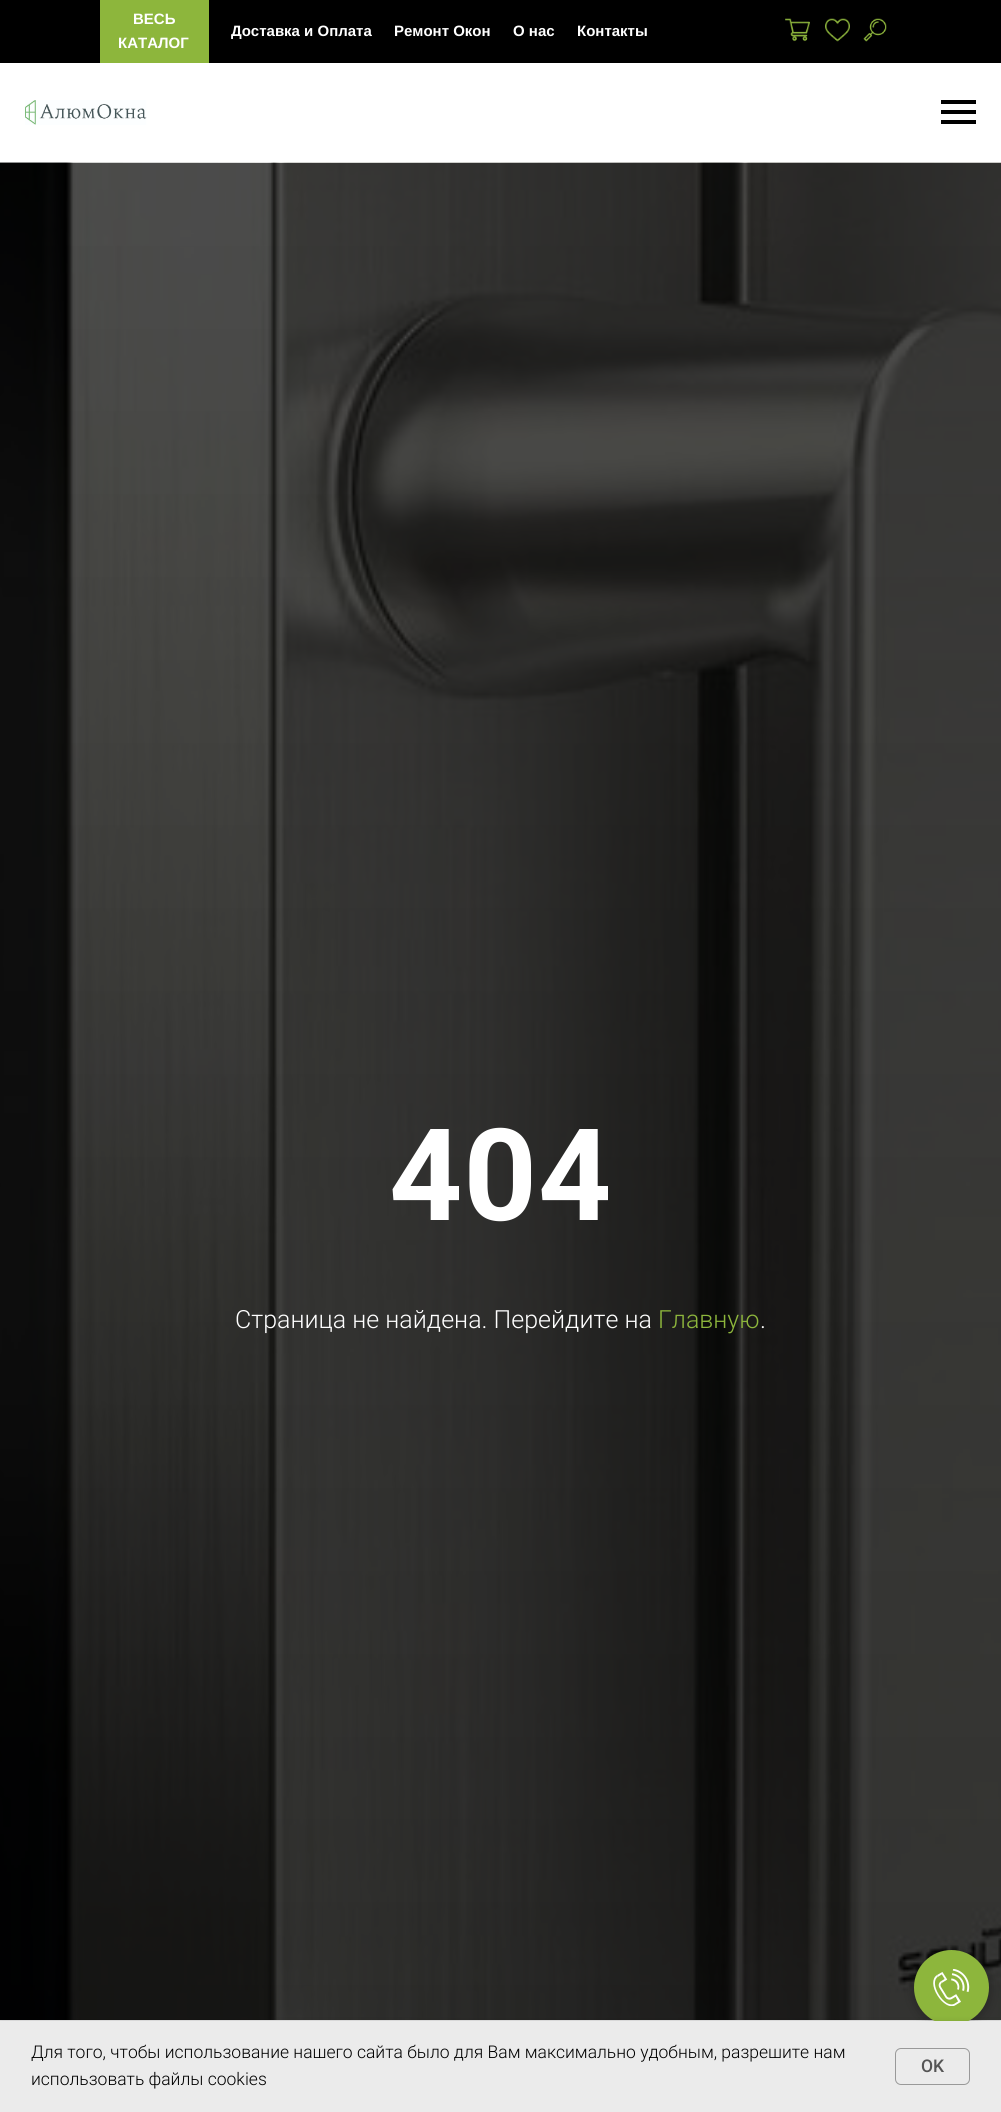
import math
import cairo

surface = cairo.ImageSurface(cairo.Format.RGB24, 1001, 2112)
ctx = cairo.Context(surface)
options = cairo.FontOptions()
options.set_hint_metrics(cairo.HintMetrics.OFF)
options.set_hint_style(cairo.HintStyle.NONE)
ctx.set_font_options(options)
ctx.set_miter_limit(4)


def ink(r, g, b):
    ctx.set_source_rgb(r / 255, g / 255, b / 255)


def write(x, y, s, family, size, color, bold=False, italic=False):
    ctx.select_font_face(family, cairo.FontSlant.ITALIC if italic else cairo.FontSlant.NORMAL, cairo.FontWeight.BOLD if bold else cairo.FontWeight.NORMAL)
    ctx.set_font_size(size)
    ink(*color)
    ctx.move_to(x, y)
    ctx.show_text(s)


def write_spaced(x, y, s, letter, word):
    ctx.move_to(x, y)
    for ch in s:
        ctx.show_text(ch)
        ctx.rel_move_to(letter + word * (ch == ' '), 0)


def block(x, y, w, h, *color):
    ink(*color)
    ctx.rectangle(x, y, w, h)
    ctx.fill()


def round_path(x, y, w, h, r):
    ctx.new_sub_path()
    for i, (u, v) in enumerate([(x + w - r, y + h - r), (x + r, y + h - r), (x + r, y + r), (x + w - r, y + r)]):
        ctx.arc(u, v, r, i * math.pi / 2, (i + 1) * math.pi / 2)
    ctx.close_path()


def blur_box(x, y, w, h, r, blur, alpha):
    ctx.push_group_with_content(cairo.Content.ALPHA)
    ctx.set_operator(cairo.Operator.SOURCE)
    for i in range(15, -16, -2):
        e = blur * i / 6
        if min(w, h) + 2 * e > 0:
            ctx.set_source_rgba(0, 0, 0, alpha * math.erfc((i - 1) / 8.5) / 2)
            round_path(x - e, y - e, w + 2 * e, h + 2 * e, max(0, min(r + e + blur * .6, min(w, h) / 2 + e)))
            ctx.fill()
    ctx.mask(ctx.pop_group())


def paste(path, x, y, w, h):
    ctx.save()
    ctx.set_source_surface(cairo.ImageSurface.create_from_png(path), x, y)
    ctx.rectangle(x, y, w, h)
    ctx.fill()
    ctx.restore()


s1 = dict(family="Liberation Sans", size=15, color=(255, 255, 255), bold=True)
s2 = dict(family="Roboto Light", size=25, color=(255, 255, 255))
s3 = dict(family="Roboto Light", size=25, color=(141, 182, 60))
s4 = dict(family="Roboto Light", size=17.5, color=(0, 0, 0))
s5 = dict(family="Roboto Medium", size=17.5, color=(85, 85, 85))

ink(255, 255, 255)
ctx.paint()
block(0, 0, 1001, 63, 0, 0, 0)
block(100, 0, 109, 63, 141, 182, 60)
write(133, 24, "ВЕСЬ", **s1)
write(118, 48, "КАТАЛОГ", **s1)
write(231, 36, "Доставка и Оплата", **s1)
write(394, 36, "Ремонт Окон", **s1)
write(513, 36, "О нас", **s1)
write(577, 36, "Контакты", **s1)
paste("pic1.png", 785, 18, 25, 24)
paste("pic2.png", 825, 18, 25, 24)
paste("pic3.png", 863, 18, 24, 24)
paste("pic4.png", 25, 100, 122, 25)
block(941, 100, 35, 4, 0, 0, 0)
block(941, 110, 35, 4, 0, 0, 0)
block(941, 120, 35, 4, 0, 0, 0)
block(0, 2020, 1001, 1, 226, 226, 226)
paste("pic6.png", 0, 162, 1001, 1)
paste("pic7.png", 0, 162, 1001, 1858)
ink(0, 0, 0)
blur_box(914, 1950, 75, 75, 37.5, 6, 0.3)
ink(141, 182, 60)
ctx.arc(951.5, 1987.5, 37.5, 0, 2 * math.pi)
ctx.fill()
paste("pic5.png", 933, 1969, 37, 37)
ctx.select_font_face("Roboto", cairo.FontSlant.NORMAL, cairo.FontWeight.BOLD)
ctx.set_font_size(128)
ink(255, 255, 255)
write_spaced(389, 1220, "404", 1, 0)
write(235, 1328, "Страница не найдена. Перейдите на", **s2)
write(658, 1328, "Главную", **s3)
write(760, 1328, ".", **s2)
ink(0, 0, 0)
blur_box(0, 2021, 1001, 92, 0, 3, 0.1)
block(0, 2021, 1001, 91, 235, 235, 235)
write(31, 2058, "Для того, чтобы использование нашего сайта было для Вам максимально удобным, разрешите нам", **s4)
write(31, 2085, "использовать файлы cookies", **s4)
round_path(895.5, 2048.5, 74, 36, 5.5)
ink(153, 153, 153)
ctx.set_line_width(1)
ctx.stroke()
write(921, 2072, "OK", **s5)
surface.write_to_png("screenshot.png")
